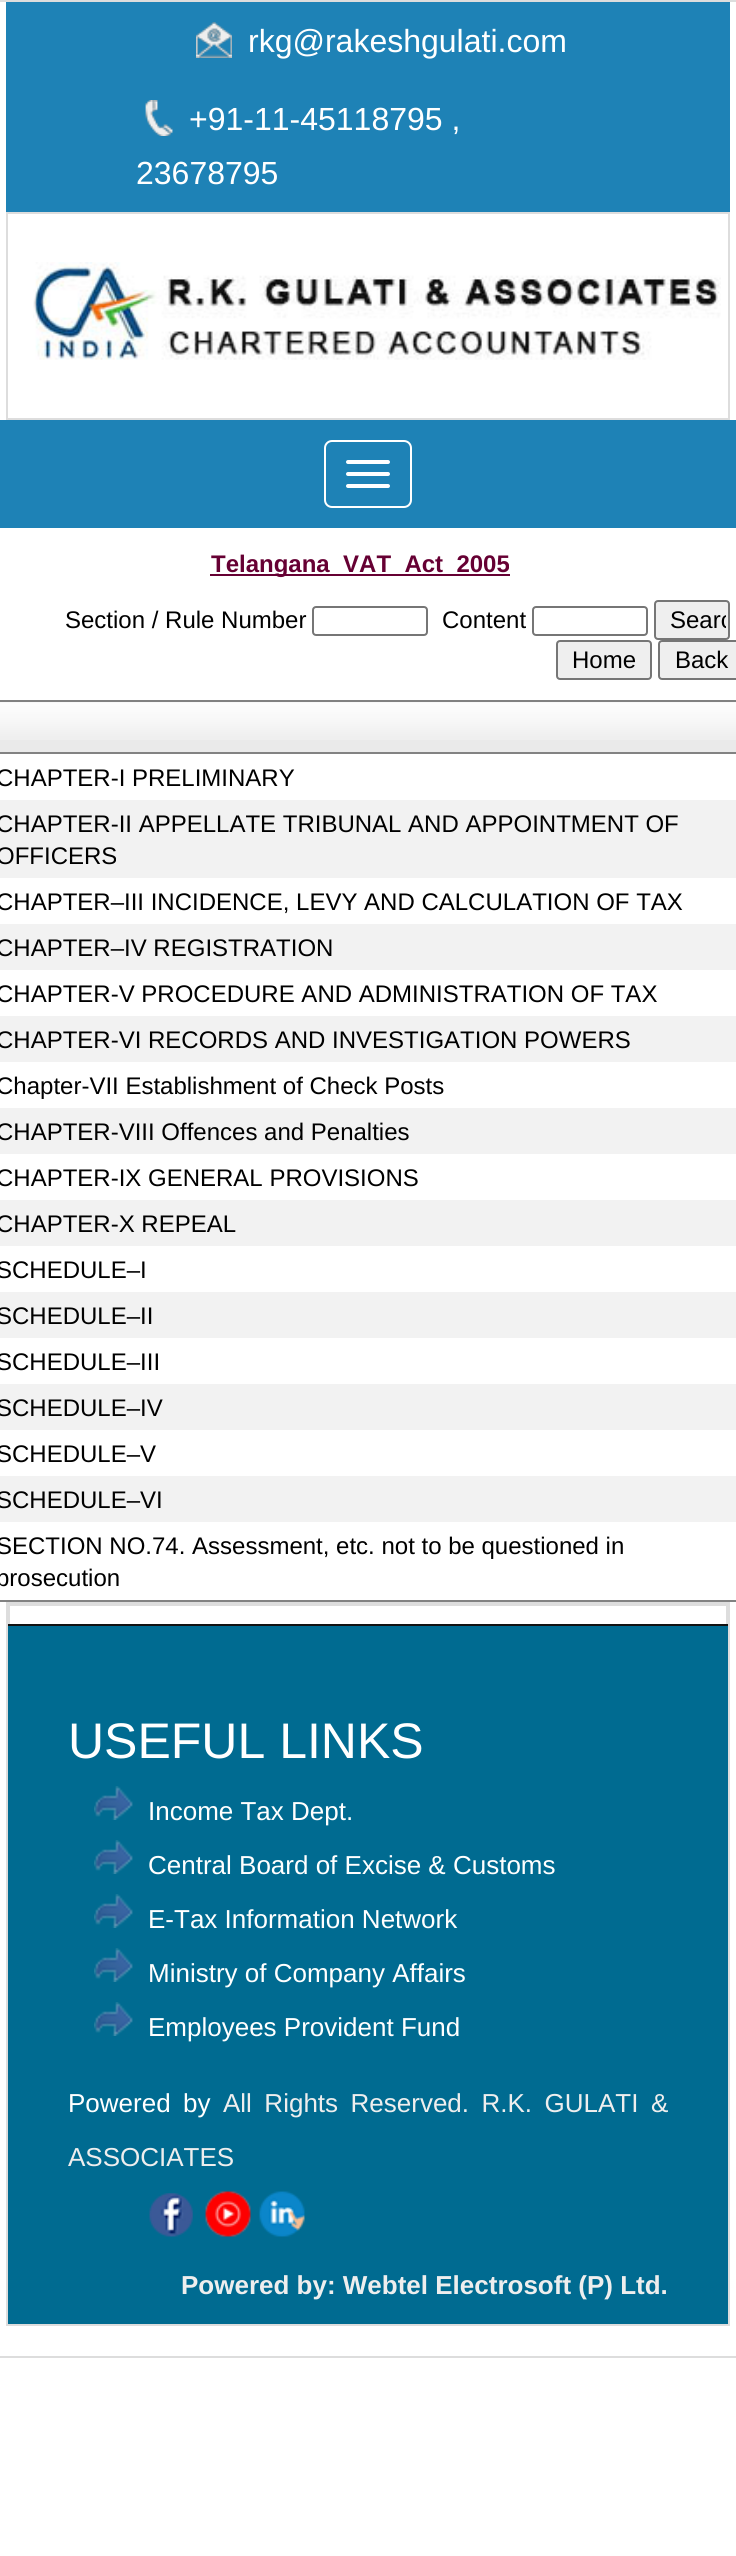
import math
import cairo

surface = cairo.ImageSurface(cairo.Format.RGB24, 736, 2556)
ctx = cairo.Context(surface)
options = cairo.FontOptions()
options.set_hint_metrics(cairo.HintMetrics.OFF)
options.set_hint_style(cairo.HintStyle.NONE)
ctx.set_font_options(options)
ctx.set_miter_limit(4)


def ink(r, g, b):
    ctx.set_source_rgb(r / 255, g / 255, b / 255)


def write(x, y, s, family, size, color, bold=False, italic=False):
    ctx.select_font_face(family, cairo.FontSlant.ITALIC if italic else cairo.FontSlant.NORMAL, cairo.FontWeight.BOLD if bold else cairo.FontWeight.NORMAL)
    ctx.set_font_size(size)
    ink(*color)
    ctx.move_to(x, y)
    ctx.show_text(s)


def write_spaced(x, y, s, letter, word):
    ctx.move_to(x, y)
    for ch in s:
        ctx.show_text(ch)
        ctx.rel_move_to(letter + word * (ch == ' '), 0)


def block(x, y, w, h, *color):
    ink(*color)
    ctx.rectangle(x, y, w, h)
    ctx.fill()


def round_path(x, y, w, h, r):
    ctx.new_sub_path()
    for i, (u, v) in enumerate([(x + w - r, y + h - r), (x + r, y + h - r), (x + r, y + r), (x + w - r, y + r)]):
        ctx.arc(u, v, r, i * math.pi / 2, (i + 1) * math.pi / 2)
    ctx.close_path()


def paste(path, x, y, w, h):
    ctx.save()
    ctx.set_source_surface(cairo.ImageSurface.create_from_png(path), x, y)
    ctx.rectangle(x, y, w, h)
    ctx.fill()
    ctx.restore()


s1 = dict(family="Liberation Sans", size=32, color=(255, 255, 255))
s2 = dict(family="Liberation Sans", size=24, color=(102, 0, 51), bold=True)
s3 = dict(family="Liberation Sans", size=24, color=(0, 0, 0))
s4 = dict(family="Liberation Sans", size=50, color=(255, 255, 255))
s5 = dict(family="Liberation Sans", size=26, color=(255, 255, 255))
s6 = dict(family="Liberation Sans", size=26, color=(238, 238, 238))
s7 = dict(family="Liberation Sans", size=26, color=(238, 238, 238), bold=True)

ink(255, 255, 255)
ctx.paint()
ctx.rectangle(-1, 1, 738, 2356)
ink(221, 221, 221)
ctx.stroke()
block(6, 2, 724, 210, 30, 130, 182)
paste("pic1.png", 196, 22, 36, 36)
write(248, 52, "rkg@rakeshgulati.com", **s1)
paste("pic2.png", 145, 100, 28, 36)
write(189, 130, "+91-11-45118795 ,", **s1)
write(136, 184, "23678795", **s1)
block(6, 212, 724, 2, 221, 221, 221)
block(728, 212, 2, 208, 221, 221, 221)
block(6, 418, 724, 2, 221, 221, 221)
block(6, 212, 2, 208, 221, 221, 221)
paste("pic3.png", 33, 262, 688, 98)
block(0, 420, 736, 108, 30, 130, 182)
round_path(325, 441, 86, 66, 7)
ink(255, 255, 255)
ctx.stroke()
round_path(346, 460, 44, 4, 2)
ctx.fill()
round_path(346, 472, 44, 4, 2)
ctx.fill()
round_path(346, 484, 44, 4, 2)
ctx.fill()
block(210, 574, 300, 2, 102, 0, 51)
write(211, 572, "Telangana_VAT_Act_2005", **s2)
write(65, 628, "Section / Rule Number", **s3)
round_path(313, 607, 114, 28, 3)
ink(118, 118, 118)
ctx.stroke()
write(442, 628, "Content", **s3)
round_path(533, 607, 114, 28, 3)
ink(118, 118, 118)
ctx.stroke()
ink(239, 239, 239)
round_path(655, 601, 74, 38, 3)
ctx.fill_preserve()
ink(118, 118, 118)
ctx.stroke()
ctx.save()
ctx.rectangle(658, 604, 68, 32)
ctx.clip()
write(670, 628, "Searc", **s3)
ctx.restore()
ink(239, 239, 239)
round_path(557, 641, 94, 38, 3)
ctx.fill_preserve()
ink(118, 118, 118)
ctx.stroke()
write(572, 668, "Home", **s3)
ink(239, 239, 239)
round_path(659, 641, 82, 38, 3)
ctx.fill_preserve()
ink(118, 118, 118)
ctx.stroke()
write(675, 668, "Back", **s3)
ctx.rectangle(-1, 701, 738, 900)
ink(130, 130, 130)
ctx.stroke()
block(0, 702, 736, 50, 234, 234, 234)
paste("pic4.png", 0, 702, 736, 38)
block(0, 752, 736, 2, 130, 130, 130)
write(-4, 786, "CHAPTER-I PRELIMINARY", **s3)
block(0, 800, 736, 78, 242, 242, 242)
write(-4, 832, "CHAPTER-II APPELLATE TRIBUNAL AND APPOINTMENT OF", **s3)
write(-4, 864, "OFFICERS", **s3)
write(-4, 910, "CHAPTER–III INCIDENCE, LEVY AND CALCULATION OF TAX", **s3)
block(0, 924, 736, 46, 242, 242, 242)
write(-4, 956, "CHAPTER–IV REGISTRATION", **s3)
write(-4, 1002, "CHAPTER-V PROCEDURE AND ADMINISTRATION OF TAX", **s3)
block(0, 1016, 736, 46, 242, 242, 242)
write(-4, 1048, "CHAPTER-VI RECORDS AND INVESTIGATION POWERS", **s3)
write(-4, 1094, "Chapter-VII Establishment of Check Posts", **s3)
block(0, 1108, 736, 46, 242, 242, 242)
write(-4, 1140, "CHAPTER-VIII Offences and Penalties", **s3)
write(-4, 1186, "CHAPTER-IX GENERAL PROVISIONS", **s3)
block(0, 1200, 736, 46, 242, 242, 242)
write(-4, 1232, "CHAPTER-X REPEAL", **s3)
write(-4, 1278, "SCHEDULE–I", **s3)
block(0, 1292, 736, 46, 242, 242, 242)
write(-4, 1324, "SCHEDULE–II", **s3)
write(-4, 1370, "SCHEDULE–III", **s3)
block(0, 1384, 736, 46, 242, 242, 242)
write(-4, 1416, "SCHEDULE–IV", **s3)
write(-4, 1462, "SCHEDULE–V", **s3)
block(0, 1476, 736, 46, 242, 242, 242)
write(-4, 1508, "SCHEDULE–VI", **s3)
write(-4, 1554, "SECTION NO.74. Assessment, etc. not to be questioned in", **s3)
write(-4, 1586, "prosecution", **s3)
block(6, 1602, 724, 2, 221, 221, 221)
block(728, 1602, 2, 724, 221, 221, 221)
block(6, 2324, 724, 2, 221, 221, 221)
block(6, 1602, 2, 724, 221, 221, 221)
block(8, 1604, 720, 2, 221, 221, 221)
block(726, 1604, 2, 20, 221, 221, 221)
block(8, 1604, 2, 20, 221, 221, 221)
block(8, 1626, 720, 698, 0, 107, 145)
block(8, 1624, 720, 2, 17, 17, 17)
write(68, 1758, "USEFUL LINKS", **s4)
paste("pic5.png", 94, 1786, 39, 34)
write(148, 1820, "Income Tax Dept.", **s5)
paste("pic5.png", 94, 1840, 39, 34)
write(148, 1874, "Central Board of Excise & Customs", **s5)
paste("pic5.png", 94, 1894, 39, 34)
write(148, 1928, "E-Tax Information Network", **s5)
paste("pic5.png", 94, 1948, 39, 34)
write(148, 1982, "Ministry of Company Affairs", **s5)
paste("pic5.png", 94, 2002, 39, 34)
write(148, 2036, "Employees Provident Fund", **s5)
write_spaced(68, 2112, "Powered by", 0, 5.25)
ink(238, 238, 238)
write_spaced(223, 2112, "All Rights Reserved. R.K. GULATI &", 0, 5.25)
write(68, 2166, "ASSOCIATES", **s6)
paste("pic6.png", 149, 2193, 44, 44)
paste("pic7.png", 205, 2191, 46, 46)
paste("pic8.png", 259, 2191, 46, 46)
write(181, 2294, "Powered by: Webtel Electrosoft (P) Ltd.", **s7)
surface.write_to_png("screenshot.png")
